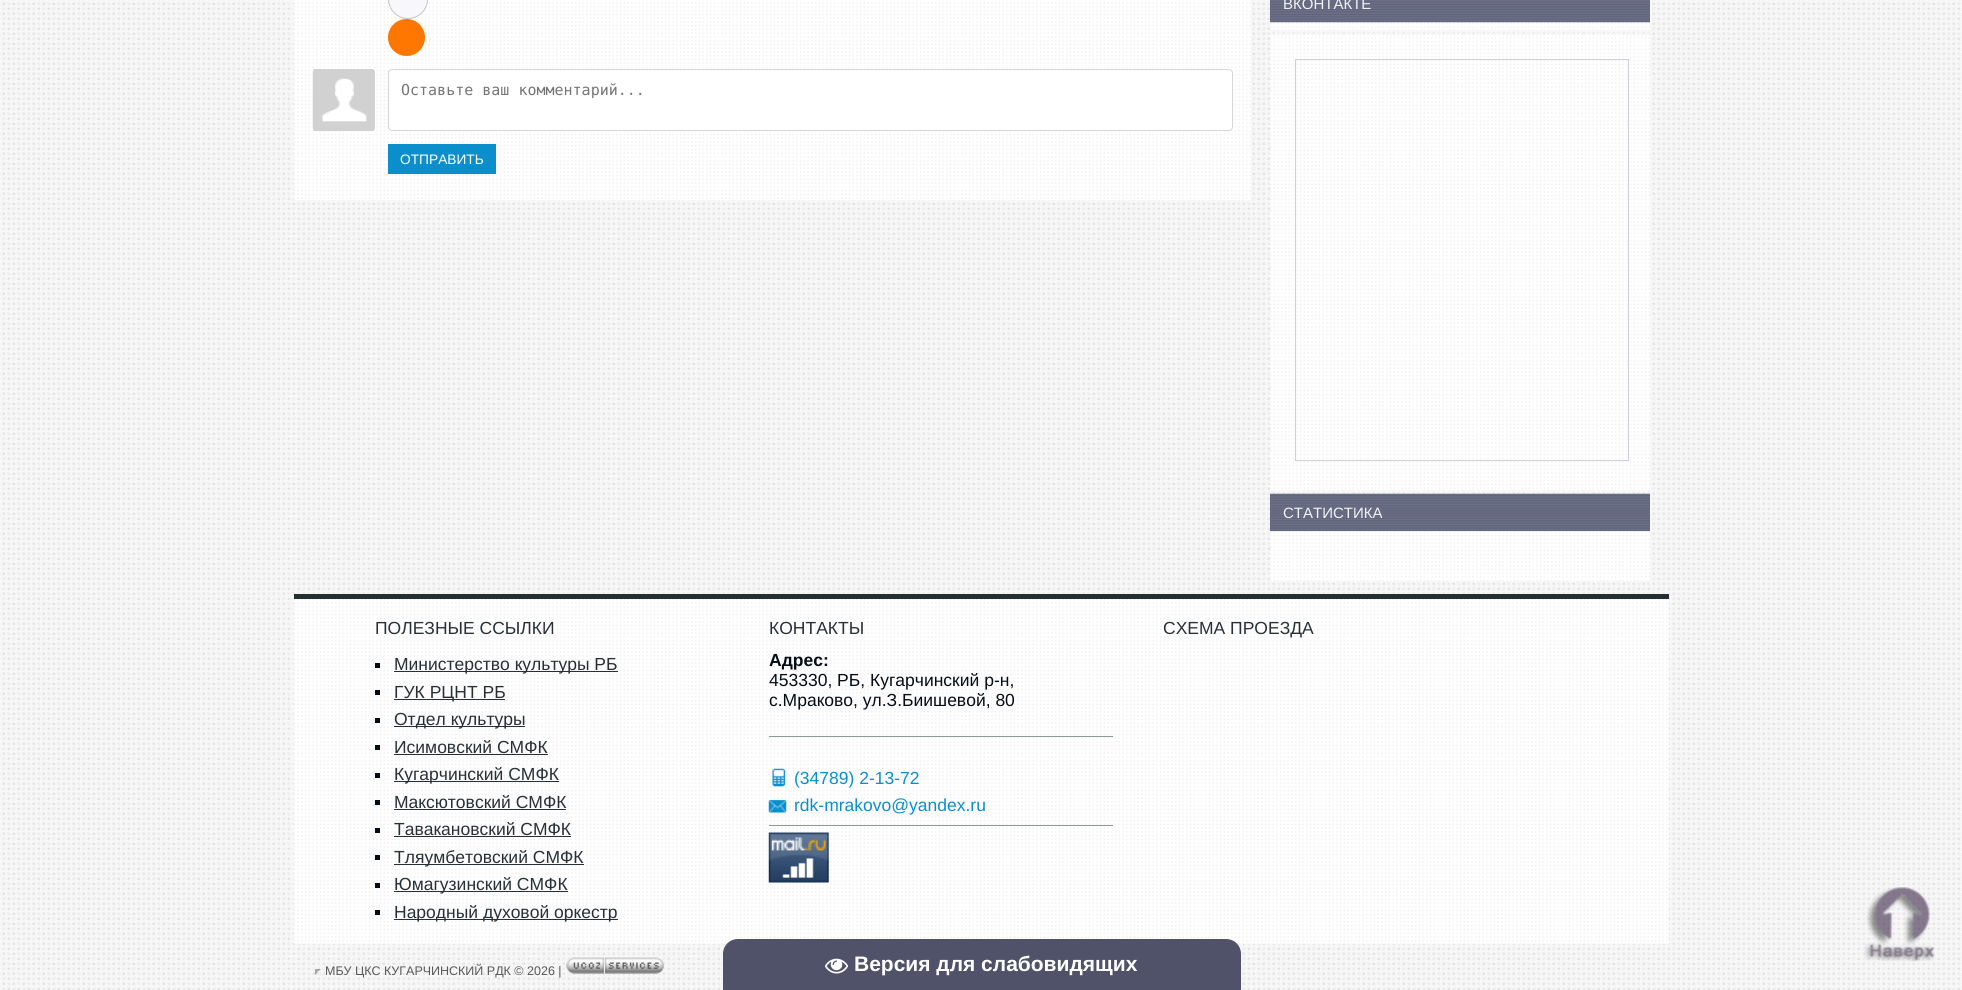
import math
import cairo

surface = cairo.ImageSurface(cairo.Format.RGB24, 1962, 990)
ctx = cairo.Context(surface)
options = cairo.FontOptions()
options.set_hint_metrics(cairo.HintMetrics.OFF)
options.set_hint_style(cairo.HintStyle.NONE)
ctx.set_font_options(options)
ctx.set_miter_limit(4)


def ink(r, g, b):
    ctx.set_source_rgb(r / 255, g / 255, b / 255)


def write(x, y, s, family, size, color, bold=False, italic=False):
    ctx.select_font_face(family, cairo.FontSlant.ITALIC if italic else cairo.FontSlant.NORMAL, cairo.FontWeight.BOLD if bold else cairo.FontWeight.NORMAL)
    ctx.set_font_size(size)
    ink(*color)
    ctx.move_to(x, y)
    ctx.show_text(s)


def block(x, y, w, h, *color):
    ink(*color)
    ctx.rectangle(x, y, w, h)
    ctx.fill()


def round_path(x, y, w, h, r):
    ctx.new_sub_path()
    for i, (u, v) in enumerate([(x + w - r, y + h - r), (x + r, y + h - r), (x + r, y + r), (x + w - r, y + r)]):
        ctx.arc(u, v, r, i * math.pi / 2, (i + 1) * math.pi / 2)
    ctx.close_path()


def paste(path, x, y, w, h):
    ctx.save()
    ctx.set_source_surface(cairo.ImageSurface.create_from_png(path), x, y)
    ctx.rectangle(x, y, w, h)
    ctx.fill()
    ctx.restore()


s1 = dict(family="DejaVu Sans Mono", size=15, color=(117, 117, 117))
s2 = dict(family="Liberation Sans", size=13.75, color=(255, 255, 255))
s3 = dict(family="Liberation Sans", size=15, color=(242, 242, 242))
s4 = dict(family="Liberation Sans", size=17.5, color=(39, 49, 53))
s5 = dict(family="Liberation Sans", size=17.5, color=(4, 13, 21), bold=True)
s6 = dict(family="Liberation Sans", size=17.5, color=(4, 13, 21))
s7 = dict(family="Liberation Sans", size=17.5, color=(10, 143, 204))
s8 = dict(family="Liberation Sans", size=12.5, color=(90, 89, 89))
s9 = dict(family="Liberation Sans", size=21, color=(255, 255, 255), bold=True)

ink(255, 255, 255)
ctx.paint()
paste("pic1.png", 0, 0, 1962, 990)
paste("pic2.png", 293, 0, 958, 200)
ink(248, 248, 252)
ctx.arc(408, -1, 19.5, 0, 2 * math.pi)
ctx.fill_preserve()
ink(196, 196, 196)
ctx.set_line_width(1)
ctx.stroke()
ink(255, 119, 0)
ctx.arc(406.5, 37.5, 18.5, 0, 2 * math.pi)
ctx.fill()
paste("pic3.png", 312, 69, 63, 62)
ink(255, 255, 255)
round_path(388.5, 69.5, 844, 61, 3.5)
ctx.fill_preserve()
ink(214, 214, 214)
ctx.stroke()
write(401, 95, "Оставьте ваш комментарий...", **s1)
block(388, 144, 108, 30, 10, 143, 204)
write(400, 164, "ОТПРАВИТЬ", **s2)
paste("pic4.png", 1270, 0, 380, 23)
write(1283, 9, "ВКОНТАКТЕ", **s3)
paste("pic5.png", 1270, 22, 380, 8)
paste("pic6.png", 1270, 33, 380, 457)
ctx.rectangle(1295.5, 59.5, 333, 401)
ink(205, 208, 212)
ctx.stroke()
paste("pic7.png", 1270, 493, 380, 39)
write(1283, 518, "СТАТИСТИКА", **s3)
paste("pic8.png", 1270, 531, 380, 50)
paste("pic9.png", 293, 593, 1376, 351)
block(294, 594, 1375, 5, 37, 47, 50)
write(375, 634, "ПОЛЕЗНЫЕ ССЫЛКИ", **s4)
block(375, 663, 5, 5, 4, 13, 21)
block(394, 671, 224, 1, 39, 49, 53)
write(394, 670, "Министерство культуры РБ", **s4)
block(375, 690, 5, 5, 4, 13, 21)
block(394, 699, 111, 1, 39, 49, 53)
write(394, 698, "ГУК РЦНТ РБ", **s4)
block(375, 718, 5, 5, 4, 13, 21)
block(394, 726, 131, 1, 39, 49, 53)
write(394, 725, "Отдел культуры", **s4)
block(375, 745, 5, 5, 4, 13, 21)
write(394, 753, "Исимовский СМФК", **s4)
block(394, 754, 154, 1, 39, 49, 53)
block(375, 773, 5, 5, 4, 13, 21)
block(394, 781, 165, 1, 39, 49, 53)
write(394, 780, "Кугарчинский СМФК", **s4)
block(375, 800, 5, 5, 4, 13, 21)
write(394, 808, "Максютовский СМФК", **s4)
block(394, 809, 172, 1, 39, 49, 53)
block(375, 828, 5, 5, 4, 13, 21)
write(394, 835, "Тавакановский СМФК", **s4)
block(394, 836, 177, 1, 39, 49, 53)
block(375, 855, 5, 5, 4, 13, 21)
block(394, 864, 190, 1, 39, 49, 53)
write(394, 863, "Тляумбетовский СМФК", **s4)
block(375, 883, 5, 5, 4, 13, 21)
block(394, 891, 174, 1, 39, 49, 53)
write(394, 890, "Юмагузинский СМФК", **s4)
block(375, 910, 5, 5, 4, 13, 21)
block(394, 919, 224, 1, 39, 49, 53)
write(394, 918, "Народный духовой оркестр", **s4)
write(769, 634, "КОНТАКТЫ", **s4)
write(769, 666, "Адрес:", **s5)
write(769, 686, "453330, РБ, Кугарчинский р-н,", **s6)
write(769, 706, "с.Мраково, ул.З.Биишевой, 80", **s6)
block(769, 736, 344, 1, 142, 152, 155)
paste("pic10.png", 772, 768, 14, 19)
write(794, 784, "(34789) 2-13-72", **s7)
paste("pic11.png", 768, 799, 19, 14)
write(794, 811, "rdk-mrakovo@yandex.ru", **s7)
block(769, 825, 344, 1, 142, 152, 155)
paste("pic12.png", 768, 832, 61, 51)
write(1163, 634, "СХЕМА ПРОЕЗДА", **s4)
paste("pic13.png", 1864, 887, 71, 75)
ink(159, 159, 159)
ctx.new_path()
ctx.move_to(315, 969)
ctx.line_to(321, 969)
ctx.line_to(319, 971)
ctx.line_to(317.5, 971)
ctx.close_path()
ctx.fill()
write(325, 975, "МБУ ЦКС КУГАРЧИНСКИЙ РДК © 2026 |", **s8)
paste("pic14.png", 566, 957, 98, 17)
ink(238, 238, 238)
ctx.new_path()
ctx.move_to(321, 969)
ctx.line_to(321, 975)
ctx.line_to(319, 972.5)
ctx.line_to(319, 971)
ctx.close_path()
ctx.fill()
ctx.new_path()
ctx.move_to(321, 975)
ctx.line_to(315, 975)
ctx.line_to(317.5, 972.5)
ctx.line_to(319, 972.5)
ctx.close_path()
ctx.fill()
ink(159, 159, 159)
ctx.new_path()
ctx.move_to(315, 975)
ctx.line_to(315, 969)
ctx.line_to(317.5, 971)
ctx.line_to(317.5, 972.5)
ctx.close_path()
ctx.fill()
ink(79, 82, 105)
ctx.new_path()
ctx.move_to(738, 939)
ctx.line_to(1226, 939)
ctx.curve_to(1234.5, 939, 1241, 945.5, 1241, 954)
ctx.line_to(1241, 990)
ctx.line_to(723, 990)
ctx.line_to(723, 954)
ctx.curve_to(723, 945.5, 729.5, 939, 738, 939)
ctx.close_path()
ctx.fill()
paste("pic15.png", 825, 958, 23, 16)
write(854, 971, "Версия для слабовидящих", **s9)
surface.write_to_png("screenshot.png")
